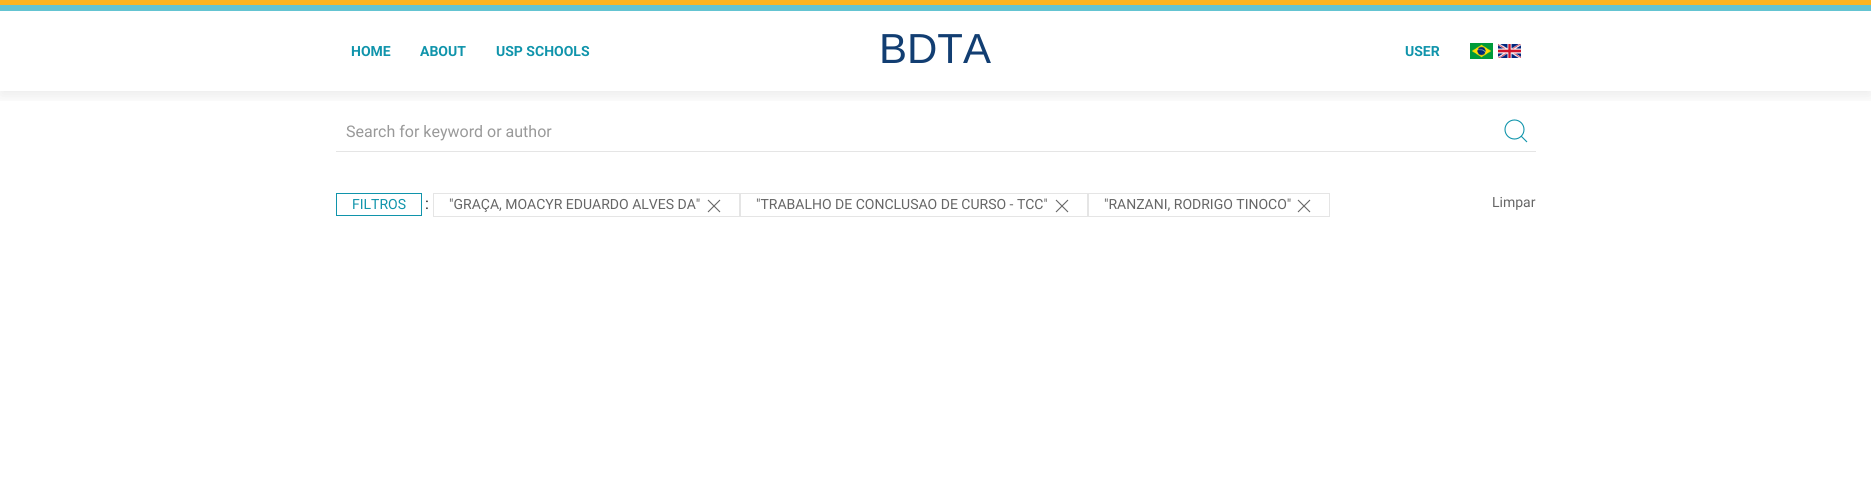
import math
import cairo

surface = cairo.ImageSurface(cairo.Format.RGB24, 1871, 486)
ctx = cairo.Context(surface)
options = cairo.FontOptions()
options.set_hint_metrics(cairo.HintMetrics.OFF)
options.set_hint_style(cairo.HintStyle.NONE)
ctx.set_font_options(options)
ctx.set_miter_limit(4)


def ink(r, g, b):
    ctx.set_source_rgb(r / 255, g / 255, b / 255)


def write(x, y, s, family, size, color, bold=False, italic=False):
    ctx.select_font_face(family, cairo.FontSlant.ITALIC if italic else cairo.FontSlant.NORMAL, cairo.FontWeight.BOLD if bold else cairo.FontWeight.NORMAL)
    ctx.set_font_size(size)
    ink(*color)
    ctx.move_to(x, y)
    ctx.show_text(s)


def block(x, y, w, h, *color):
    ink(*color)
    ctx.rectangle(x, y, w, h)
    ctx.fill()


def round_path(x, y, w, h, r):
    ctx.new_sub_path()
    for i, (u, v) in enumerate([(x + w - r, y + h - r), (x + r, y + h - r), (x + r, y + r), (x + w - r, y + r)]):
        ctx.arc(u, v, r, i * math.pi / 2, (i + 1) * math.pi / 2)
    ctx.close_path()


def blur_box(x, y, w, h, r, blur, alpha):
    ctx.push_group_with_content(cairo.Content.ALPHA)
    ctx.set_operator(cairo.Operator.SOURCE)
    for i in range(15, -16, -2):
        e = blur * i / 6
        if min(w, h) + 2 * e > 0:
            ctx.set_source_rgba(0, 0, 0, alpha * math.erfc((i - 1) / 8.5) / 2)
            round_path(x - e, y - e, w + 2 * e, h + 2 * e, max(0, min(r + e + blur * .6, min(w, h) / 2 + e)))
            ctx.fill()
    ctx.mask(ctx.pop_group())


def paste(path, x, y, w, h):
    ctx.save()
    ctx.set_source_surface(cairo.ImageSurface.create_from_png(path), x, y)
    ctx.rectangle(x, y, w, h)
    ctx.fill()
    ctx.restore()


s1 = dict(family="Roboto", size=14, color=(16, 148, 171), bold=True)
s2 = dict(family="Liberation Sans", size=42, color=(18, 62, 114))
s3 = dict(family="Roboto", size=16, color=(153, 153, 153))
s4 = dict(family="Roboto", size=14, color=(16, 148, 171))
s5 = dict(family="Roboto", size=16, color=(51, 51, 51))
s6 = dict(family="Roboto", size=14, color=(102, 102, 102))

ink(255, 255, 255)
ctx.paint()
block(0, 0, 1871, 5, 252, 180, 33)
block(0, 5, 1871, 6, 100, 196, 210)
ctx.save()
ctx.rectangle(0, 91, 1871, 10)
ctx.clip()
ink(0, 0, 0)
blur_box(0, 16, 1871, 80, 0, 7.5, 0.08)
ctx.restore()
write(351, 56, "HOME", **s1)
write(420, 56, "ABOUT", **s1)
write(496, 56, "USP SCHOOLS", **s1)
write(879, 63, "BDTA", **s2)
write(1405, 56, "USER", **s1)
paste("pic1.png", 1470, 43, 23, 16)
paste("pic2.png", 1498, 44, 23, 14)
block(336, 151, 1200, 1, 229, 229, 229)
write(346, 137, "Search for keyword or author", **s3)
ctx.new_path()
ctx.arc(1514.5, 129.5, 9.5, 0, 2 * math.pi)
ink(16, 148, 171)
ctx.set_line_width(1.1)
ctx.stroke()
ctx.new_path()
ctx.move_to(1527, 142)
ctx.line_to(1521, 136)
ctx.stroke()
ctx.rectangle(336.5, 193.5, 85, 22)
ctx.set_line_width(1)
ctx.stroke()
write(352, 209, "FILTROS", **s4)
write(425, 209, ":", **s5)
ctx.rectangle(433.5, 193.5, 306, 23)
ink(229, 229, 229)
ctx.stroke()
write(449, 209, "\"GRAÇA, MOACYR EDUARDO ALVES DA\"", **s6)
ctx.new_path()
ctx.move_to(720, 212)
ctx.line_to(708, 200)
ctx.move_to(720, 200)
ctx.line_to(708, 212)
ctx.set_line_width(1.1)
ctx.stroke()
ctx.rectangle(740.5, 193.5, 347, 23)
ink(229, 229, 229)
ctx.set_line_width(1)
ctx.stroke()
write(756, 209, "\"TRABALHO DE CONCLUSAO DE CURSO - TCC\"", **s6)
ctx.new_path()
ctx.move_to(1068, 212)
ctx.line_to(1056, 200)
ctx.move_to(1068, 200)
ctx.line_to(1056, 212)
ctx.set_line_width(1.1)
ctx.stroke()
ctx.rectangle(1088.5, 193.5, 241, 23)
ink(229, 229, 229)
ctx.set_line_width(1)
ctx.stroke()
write(1104, 209, "\"RANZANI, RODRIGO TINOCO\"", **s6)
ctx.new_path()
ctx.move_to(1310, 212)
ctx.line_to(1298, 200)
ctx.move_to(1310, 200)
ctx.line_to(1298, 212)
ctx.set_line_width(1.1)
ctx.stroke()
write(1492, 207, "Limpar", **s6)
surface.write_to_png("screenshot.png")
